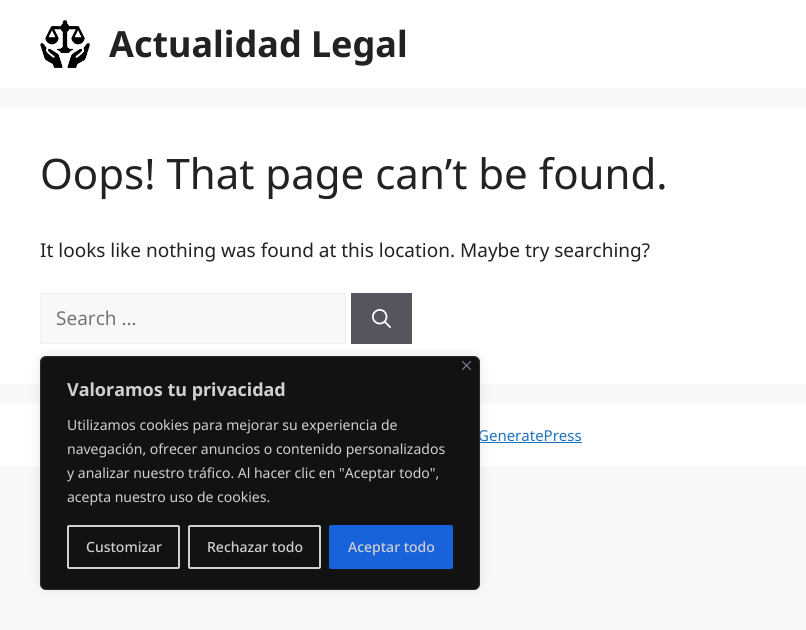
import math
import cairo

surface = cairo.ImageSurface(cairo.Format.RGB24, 806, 630)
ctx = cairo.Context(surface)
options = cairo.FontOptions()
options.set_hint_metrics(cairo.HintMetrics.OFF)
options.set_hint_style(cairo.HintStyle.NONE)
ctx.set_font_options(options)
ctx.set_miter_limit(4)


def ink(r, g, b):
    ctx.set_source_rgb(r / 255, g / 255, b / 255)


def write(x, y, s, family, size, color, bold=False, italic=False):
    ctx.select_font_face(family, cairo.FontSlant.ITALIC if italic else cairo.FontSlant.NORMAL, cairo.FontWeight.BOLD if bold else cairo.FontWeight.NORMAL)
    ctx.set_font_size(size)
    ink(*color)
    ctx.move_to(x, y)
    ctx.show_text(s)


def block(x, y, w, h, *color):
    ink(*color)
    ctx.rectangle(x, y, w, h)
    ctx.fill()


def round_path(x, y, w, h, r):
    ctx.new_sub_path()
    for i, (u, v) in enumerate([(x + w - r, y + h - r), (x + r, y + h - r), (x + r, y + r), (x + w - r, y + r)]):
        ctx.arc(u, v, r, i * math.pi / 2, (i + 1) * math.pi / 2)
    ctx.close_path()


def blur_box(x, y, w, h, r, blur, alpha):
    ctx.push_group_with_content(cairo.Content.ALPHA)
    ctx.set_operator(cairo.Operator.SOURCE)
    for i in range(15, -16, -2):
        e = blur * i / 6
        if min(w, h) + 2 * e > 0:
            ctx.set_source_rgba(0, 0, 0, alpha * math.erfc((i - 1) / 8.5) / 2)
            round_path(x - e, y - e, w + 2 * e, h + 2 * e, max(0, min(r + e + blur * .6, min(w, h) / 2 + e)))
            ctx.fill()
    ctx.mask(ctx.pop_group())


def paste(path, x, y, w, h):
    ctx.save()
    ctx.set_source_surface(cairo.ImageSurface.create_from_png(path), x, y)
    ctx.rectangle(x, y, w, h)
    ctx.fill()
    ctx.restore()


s1 = dict(family="Noto Sans", size=36, color=(34, 34, 34), bold=True)
s2 = dict(family="Noto Sans", size=42, color=(34, 34, 34))
s3 = dict(family="Noto Sans", size=19, color=(34, 34, 34))
s4 = dict(family="Noto Sans", size=19, color=(117, 117, 117))
s5 = dict(family="Noto Sans", size=15, color=(30, 115, 190))
s6 = dict(family="Noto Sans", size=18, color=(208, 208, 208), bold=True)
s7 = dict(family="Noto Sans", size=14, color=(208, 208, 208))
s8 = dict(family="Noto Sans Medium", size=14, color=(208, 208, 208))

ink(247, 248, 249)
ctx.paint()
block(0, 0, 806, 88, 255, 255, 255)
paste("pic1.png", 40, 20, 50, 48)
write(109, 57, "Actualidad Legal", **s1)
block(0, 108, 806, 276, 255, 255, 255)
write(40, 189, "Oops! That page can’t be found.", **s2)
write(40, 257, "It looks like nothing was found at this location. Maybe try searching?", **s3)
ink(247, 248, 249)
ctx.rectangle(40.5, 293.5, 305, 50)
ctx.fill_preserve()
ink(240, 240, 240)
ctx.set_line_width(1)
ctx.stroke()
write(56, 325, "Search …", **s4)
block(351, 293, 61, 51, 85, 85, 94)
paste("pic2.png", 372, 309, 19, 19)
block(0, 404, 806, 62, 255, 255, 255)
block(478, 442, 104, 1, 30, 115, 190)
ink(172, 171, 171)
blur_box(40, 355, 440, 234, 6, 5, 0.3)
write(478, 441, "GeneratePress", **s5)
ink(18, 18, 18)
round_path(40.5, 356.5, 439, 233, 5.5)
ctx.fill_preserve()
ink(42, 42, 42)
ctx.stroke()
paste("pic3.png", 462, 361, 9, 9)
write(67, 396, "Valoramos tu privacidad", **s6)
write(67, 430, "Utilizamos cookies para mejorar su experiencia de", **s7)
write(67, 454, "navegación, ofrecer anuncios o contenido personalizados", **s7)
write(67, 478, "y analizar nuestro tráfico. Al hacer clic en \"Aceptar todo\",", **s7)
write(67, 502, "acepta nuestro uso de cookies.", **s7)
round_path(68, 526, 111, 42, 1)
ctx.set_line_width(2)
ctx.stroke()
write(86, 552, "Customizar", **s8)
round_path(189, 526, 131, 42, 1)
ctx.stroke()
write(207, 552, "Rechazar todo", **s8)
ink(24, 99, 220)
round_path(330, 526, 122, 42, 1)
ctx.fill_preserve()
ctx.stroke()
write(348, 552, "Aceptar todo", **s8)
surface.write_to_png("screenshot.png")
